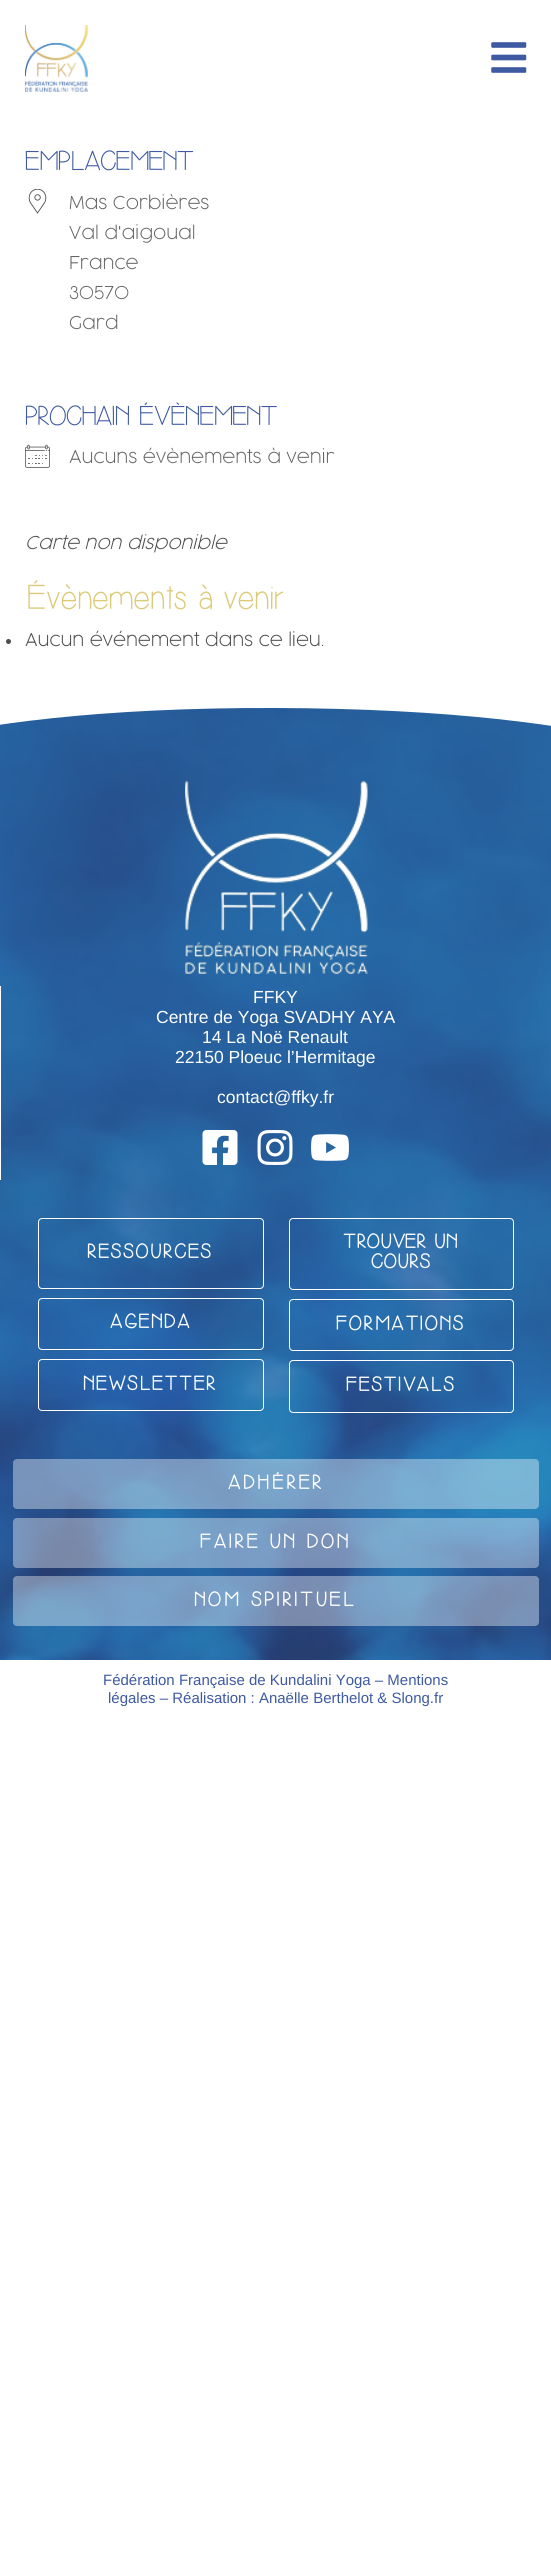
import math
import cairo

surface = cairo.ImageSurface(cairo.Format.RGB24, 551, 2566)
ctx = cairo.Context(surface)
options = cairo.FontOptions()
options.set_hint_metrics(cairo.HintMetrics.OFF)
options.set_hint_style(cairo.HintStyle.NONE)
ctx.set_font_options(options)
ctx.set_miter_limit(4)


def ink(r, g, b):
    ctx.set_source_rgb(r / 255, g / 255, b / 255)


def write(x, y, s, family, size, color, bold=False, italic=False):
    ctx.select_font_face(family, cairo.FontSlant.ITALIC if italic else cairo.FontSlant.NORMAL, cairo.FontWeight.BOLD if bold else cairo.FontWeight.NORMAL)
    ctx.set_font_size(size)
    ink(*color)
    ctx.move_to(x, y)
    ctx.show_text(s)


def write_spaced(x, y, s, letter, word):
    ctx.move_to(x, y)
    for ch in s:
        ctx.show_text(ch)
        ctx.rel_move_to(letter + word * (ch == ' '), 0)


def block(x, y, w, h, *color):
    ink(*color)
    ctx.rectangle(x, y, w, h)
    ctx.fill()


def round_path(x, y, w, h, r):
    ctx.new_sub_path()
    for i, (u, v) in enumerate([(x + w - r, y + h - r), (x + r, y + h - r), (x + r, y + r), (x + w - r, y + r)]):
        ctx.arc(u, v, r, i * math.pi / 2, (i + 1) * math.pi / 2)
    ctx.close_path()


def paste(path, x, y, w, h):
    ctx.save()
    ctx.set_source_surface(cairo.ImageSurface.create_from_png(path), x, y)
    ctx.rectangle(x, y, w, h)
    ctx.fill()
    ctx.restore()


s1 = dict(family="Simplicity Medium", size=27.5, color=(61, 90, 162))
s2 = dict(family="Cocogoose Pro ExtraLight", size=17.5, color=(102, 102, 102))
s3 = dict(family="Cocogoose Pro ExtraLight", size=17.5, color=(77, 77, 77), italic=True)
s4 = dict(family="Simplicity Medium", size=35, color=(221, 202, 121))
s5 = dict(family="Cocogoose Pro ExtraLight", size=17.5, color=(77, 77, 77))
s6 = dict(family="Liberation Sans", size=17.5, color=(255, 255, 255))
s7 = dict(family="Liberation Sans", size=15, color=(61, 90, 162))

ink(255, 255, 255)
ctx.paint()
paste("pic1.png", 25, 25, 63, 67)
paste("pic2.png", 491, 42, 36, 31)
write(25, 170, "EMPLACEMENT", **s1)
paste("pic3.png", 28, 189, 19, 25)
write(69, 209, "Mas Corbières", **s2)
write(69, 239, "Val d'aigoual", **s2)
write(69, 269, "France", **s2)
write(69, 299, "30570", **s2)
write(69, 329, "Gard", **s2)
write(25, 425, "PROCHAIN ÉVÈNEMENT", **s1)
paste("pic4.png", 25, 444, 25, 24)
write(69, 463, "Aucuns évènements à venir", **s2)
write(25, 549, "Carte non disponible", **s3)
write(25, 609, "Évènements à venir", **s4)
ink(77, 77, 77)
ctx.new_path()
ctx.arc(8.5, 641.5, 2.5, 0, 2 * math.pi)
ctx.fill()
write(25, 646, "Aucun événement dans ce lieu.", **s5)
paste("pic5.png", 0, 708, 551, 952)
ink(255, 255, 255)
ctx.new_path()
ctx.move_to(275, 708)
ctx.curve_to(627, 709, 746, 774, 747, 791)
ctx.line_to(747, 706)
ctx.line_to(-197, 706)
ctx.line_to(-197, 790)
ctx.curve_to(-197, 774, -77, 707, 275, 708)
ctx.close_path()
ctx.fill()
paste("pic6.png", 185, 781, 183, 193)
block(0, 986, 1, 194, 255, 255, 255)
write(253, 1003, "FFKY", **s6)
write(156, 1023, "Centre de Yoga SVADHY AYA", **s6)
write(202, 1043, "14 La Noë Renault", **s6)
write(175, 1063, "22150 Ploeuc l’Hermitage", **s6)
write(217, 1103, "contact@ffky.fr", **s6)
paste("pic7.png", 202, 1130, 36, 35)
paste("pic8.png", 257, 1130, 36, 35)
paste("pic9.png", 311, 1134, 38, 27)
round_path(38.5, 1218.5, 225, 70, 3.5)
ctx.set_line_width(1)
ctx.stroke()
ctx.select_font_face("Simplicity", cairo.FontSlant.NORMAL, cairo.FontWeight.BOLD)
ctx.set_font_size(20)
write_spaced(87, 1258, "RESSOURCES", 2.5, 0)
round_path(38.5, 1298.5, 225, 51, 3.5)
ctx.stroke()
write_spaced(110, 1328, "AGENDA", 2.5, 0)
round_path(38.5, 1359.5, 225, 51, 3.5)
ctx.stroke()
write_spaced(83, 1390, "NEWSLETTER", 2.5, 0)
round_path(289.5, 1218.5, 224, 71, 3.5)
ctx.stroke()
write_spaced(343, 1248, "TROUVER UN", 1.5, 0)
write_spaced(371, 1268, "COURS", 1.5, 0)
round_path(289.5, 1299.5, 224, 51, 3.5)
ctx.stroke()
write_spaced(336, 1330, "FORMATIONS", 2.5, 0)
round_path(289.5, 1360.5, 224, 52, 3.5)
ctx.stroke()
write_spaced(346, 1391, "FESTIVALS", 2.5, 0)
ctx.set_source_rgba(1, 1, 1, 0.38)
round_path(13, 1459, 526, 50, 4)
ctx.fill()
ink(255, 255, 255)
write_spaced(228, 1489, "ADHÉRER", 3.5, 0)
ctx.set_source_rgba(1, 1, 1, 0.38)
round_path(13, 1518, 526, 50, 4)
ctx.fill()
ink(255, 255, 255)
write_spaced(200, 1548, "FAIRE UN DON", 3.5, 0)
ctx.set_source_rgba(1, 1, 1, 0.38)
round_path(13, 1576, 526, 50, 4)
ctx.fill()
ink(255, 255, 255)
write_spaced(194, 1606, "NOM SPIRITUEL", 3.5, 0)
write(103, 1685, "Fédération Française de Kundalini Yoga – Mentions", **s7)
write(108, 1703, "légales – Réalisation : Anaëlle Berthelot & Slong.fr", **s7)
surface.write_to_png("screenshot.png")
